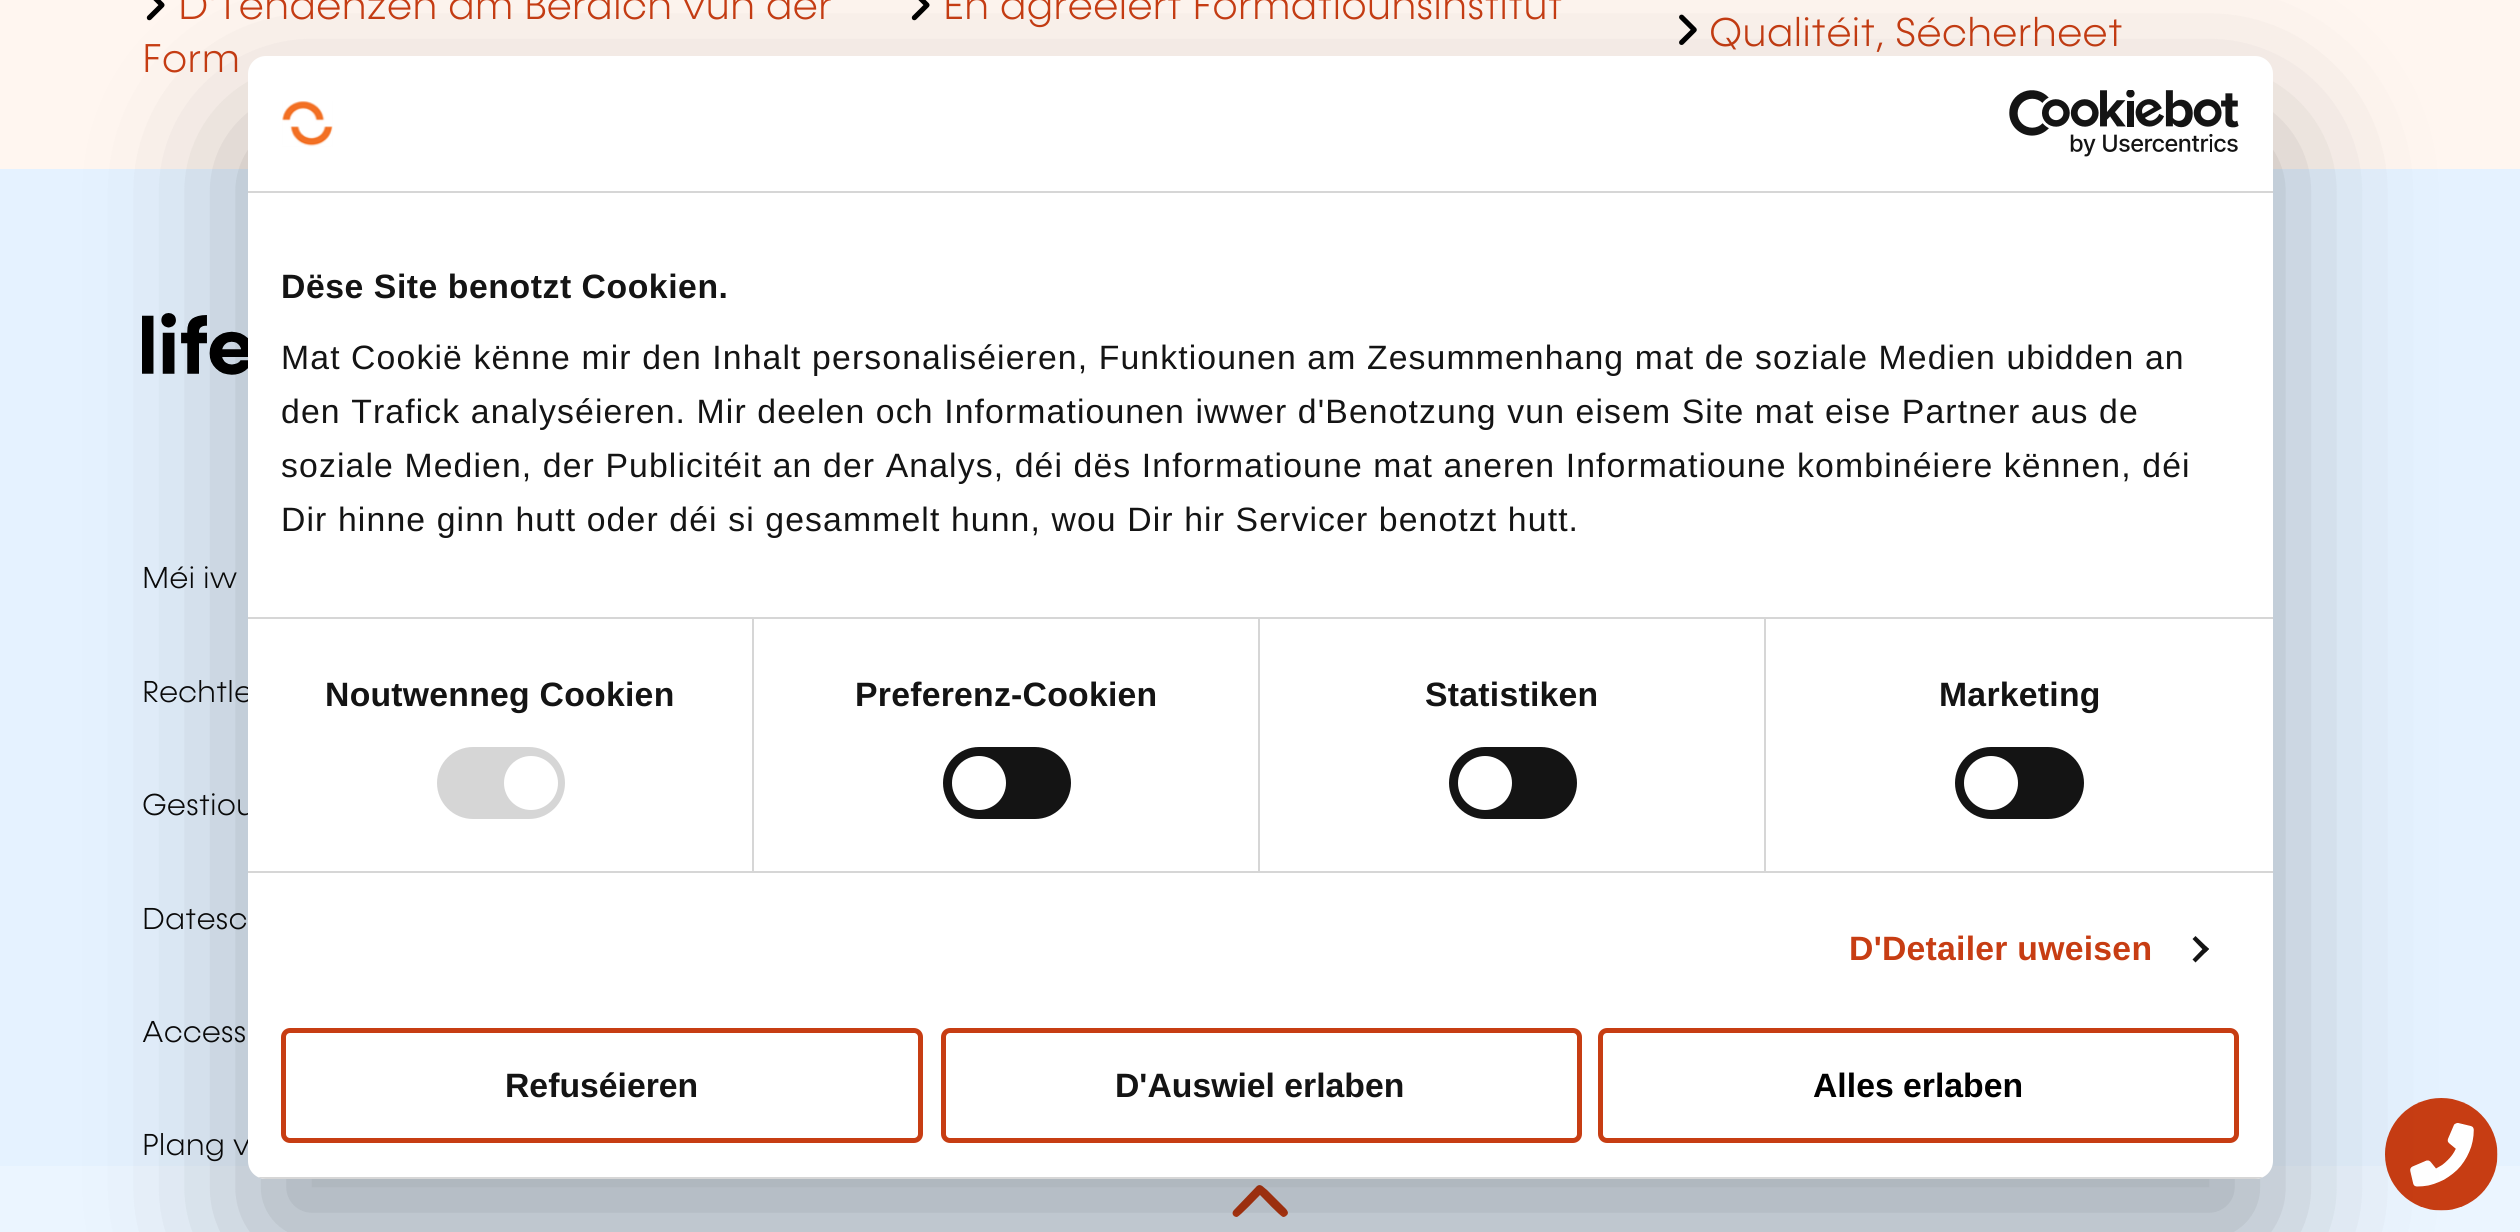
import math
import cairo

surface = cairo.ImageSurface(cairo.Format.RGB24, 2520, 1232)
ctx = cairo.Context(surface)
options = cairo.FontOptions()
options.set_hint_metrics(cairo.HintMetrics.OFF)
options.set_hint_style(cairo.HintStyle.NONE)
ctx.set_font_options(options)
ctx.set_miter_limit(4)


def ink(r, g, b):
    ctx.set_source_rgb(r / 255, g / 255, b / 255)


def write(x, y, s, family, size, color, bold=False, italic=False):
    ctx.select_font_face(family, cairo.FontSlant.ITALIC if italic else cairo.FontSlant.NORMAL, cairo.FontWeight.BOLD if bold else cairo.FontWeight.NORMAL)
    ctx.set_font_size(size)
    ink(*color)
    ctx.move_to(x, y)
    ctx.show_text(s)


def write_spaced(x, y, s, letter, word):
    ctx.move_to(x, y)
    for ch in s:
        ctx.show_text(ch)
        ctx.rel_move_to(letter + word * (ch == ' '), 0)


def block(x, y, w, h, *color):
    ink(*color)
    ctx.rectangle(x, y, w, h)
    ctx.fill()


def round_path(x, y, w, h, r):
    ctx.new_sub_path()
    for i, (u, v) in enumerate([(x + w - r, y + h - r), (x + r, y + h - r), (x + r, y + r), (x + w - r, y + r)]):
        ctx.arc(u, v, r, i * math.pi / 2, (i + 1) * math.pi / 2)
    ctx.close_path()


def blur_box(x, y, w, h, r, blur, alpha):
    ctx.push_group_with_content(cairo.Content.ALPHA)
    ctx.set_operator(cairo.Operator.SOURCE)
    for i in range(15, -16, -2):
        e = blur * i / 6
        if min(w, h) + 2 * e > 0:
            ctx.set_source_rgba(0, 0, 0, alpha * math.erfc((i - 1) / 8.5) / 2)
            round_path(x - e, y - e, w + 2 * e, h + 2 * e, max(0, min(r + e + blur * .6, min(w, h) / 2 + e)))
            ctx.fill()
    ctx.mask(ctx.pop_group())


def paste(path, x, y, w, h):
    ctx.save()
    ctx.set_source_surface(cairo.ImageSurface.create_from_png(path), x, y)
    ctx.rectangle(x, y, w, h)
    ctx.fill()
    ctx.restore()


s1 = dict(family="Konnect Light", size=40.5, color=(199, 61, 19))
s2 = dict(family="Konnect Light", size=30.5, color=(10, 10, 10))
s3 = dict(family="Liberation Sans", size=33.75, color=(20, 20, 20), bold=True)
s4 = dict(family="Liberation Sans", size=33.75, color=(0, 0, 0), bold=True)

ink(255, 246, 240)
ctx.paint()
paste("pic1.png", 146, 0, 19, 21)
write(178, 19, "D'Tendenzen am Beräich vun der", **s1)
write(142, 72, "Form", **s1)
paste("pic1.png", 911, 0, 19, 21)
write(943, 19, "En agreéiert Formatiounsinstitut", **s1)
paste("pic2.png", 1679, 14, 18, 31)
write(1709, 46, "Qualitéit, Sécherheet", **s1)
block(0, 169, 2520, 997, 229, 242, 255)
paste("pic3.png", 142, 313, 106, 62)
write(142, 588, "Méi iw", **s2)
write(142, 702, "Rechtle", **s2)
write(142, 815, "Gestiou", **s2)
write(142, 929, "Datesc", **s2)
write(142, 1042, "Access", **s2)
write(142, 1155, "Plang v", **s2)
block(0, 1166, 2520, 66, 235, 245, 255)
ink(199, 61, 19)
ctx.new_path()
ctx.move_to(1257, 1186)
ctx.curve_to(1261, 1183, 1264, 1188, 1267, 1190)
ctx.line_to(1283, 1206)
ctx.curve_to(1285, 1208, 1290, 1212, 1287, 1215)
ctx.curve_to(1286, 1216, 1285, 1217, 1283, 1217)
ctx.curve_to(1280, 1216, 1263, 1198, 1260, 1195)
ctx.curve_to(1257, 1198, 1240, 1216, 1237, 1217)
ctx.curve_to(1233, 1217, 1231, 1213, 1234, 1210)
ctx.close_path()
ctx.fill()
paste("pic6.png", 2385, 1098, 113, 113)
ink(0, 0, 0)
blur_box(248, 128, 2025, 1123, 18, 76.5, 0.3)
ink(255, 255, 255)
round_path(248, 56, 2025, 1123, 18)
ctx.fill()
block(248, 191, 2025, 2, 214, 214, 214)
paste("pic4.png", 282, 101, 51, 46)
paste("pic5.png", 2009, 90, 230, 67)
block(248, 617, 2025, 2, 214, 214, 214)
ctx.select_font_face("Liberation Sans", cairo.FontSlant.NORMAL, cairo.FontWeight.BOLD)
ctx.set_font_size(33.75)
ink(20, 20, 20)
write_spaced(281, 298, "Dëse Site benotzt Cookien.", 0.55, 0)
ctx.select_font_face("Liberation Sans")
write_spaced(281, 369, "Mat Cookië kënne mir den Inhalt personaliséieren, Funktiounen am Zesummenhang mat de soziale Medien ubidden an", 1.12, 0)
write_spaced(281, 423, "den Trafick analyséieren. Mir deelen och Informatiounen iwwer d'Benotzung vun eisem Site mat eise Partner aus de", 1.12, 0)
write_spaced(281, 477, "soziale Medien, der Publicitéit an der Analys, déi dës Informatioune mat aneren Informatioune kombinéiere kënnen, déi", 1.12, 0)
write_spaced(281, 531, "Dir hinne ginn hutt oder déi si gesammelt hunn, wou Dir hir Servicer benotzt hutt.", 1.12, 0)
block(248, 871, 2025, 2, 214, 214, 214)
block(752, 619, 2, 252, 214, 214, 214)
ctx.select_font_face("Liberation Sans", cairo.FontSlant.NORMAL, cairo.FontWeight.BOLD)
ink(20, 20, 20)
write_spaced(325, 706, "Noutwenneg Cookien", 0.25, 0)
ink(214, 214, 214)
round_path(437, 747, 128, 72, 36)
ctx.fill()
ink(255, 255, 255)
ctx.arc(531, 783, 27, 0, 2 * math.pi)
ctx.fill()
block(1258, 619, 2, 252, 214, 214, 214)
ink(20, 20, 20)
write_spaced(855, 706, "Preferenz-Cookien", 0.25, 0)
round_path(943, 747, 128, 72, 36)
ctx.fill()
ink(255, 255, 255)
ctx.arc(979, 783, 27, 0, 2 * math.pi)
ctx.fill()
block(1764, 619, 2, 252, 214, 214, 214)
ink(20, 20, 20)
write_spaced(1425, 706, "Statistiken", 0.25, 0)
round_path(1449, 747, 128, 72, 36)
ctx.fill()
ink(255, 255, 255)
ctx.arc(1485, 783, 27, 0, 2 * math.pi)
ctx.fill()
ink(20, 20, 20)
write_spaced(1939, 706, "Marketing", 0.25, 0)
round_path(1955, 747, 129, 72, 36)
ctx.fill()
ink(255, 255, 255)
ctx.arc(1991, 783, 27, 0, 2 * math.pi)
ctx.fill()
ink(199, 61, 19)
write_spaced(1849, 960, "D'Detailer uweisen", 0.25, 0)
ink(20, 20, 20)
ctx.new_path()
ctx.move_to(2195.5, 936)
ctx.line_to(2209, 949)
ctx.line_to(2205.5, 952.5)
ctx.line_to(2192.5, 939)
ctx.close_path()
ctx.fill()
ctx.new_path()
ctx.move_to(2205.5, 946)
ctx.line_to(2209, 949)
ctx.line_to(2195.5, 962.5)
ctx.line_to(2192.5, 959.5)
ctx.close_path()
ctx.fill()
ctx.save()
round_path(248, 56, 2025, 1123, 18)
ctx.clip()
block(258, 1177, 2005, 2, 214, 214, 214)
ctx.restore()
round_path(283.5, 1030.5, 637, 110, 6.5)
ink(199, 61, 19)
ctx.set_line_width(5)
ctx.stroke()
write(505, 1097, "Refuséieren", **s3)
round_path(943.5, 1030.5, 636, 110, 6.5)
ink(199, 61, 19)
ctx.stroke()
write(1115, 1097, "D'Auswiel erlaben", **s3)
round_path(1600.5, 1030.5, 636, 110, 6.5)
ink(199, 61, 19)
ctx.stroke()
write(1813, 1097, "Alles erlaben", **s4)
surface.write_to_png("screenshot.png")
